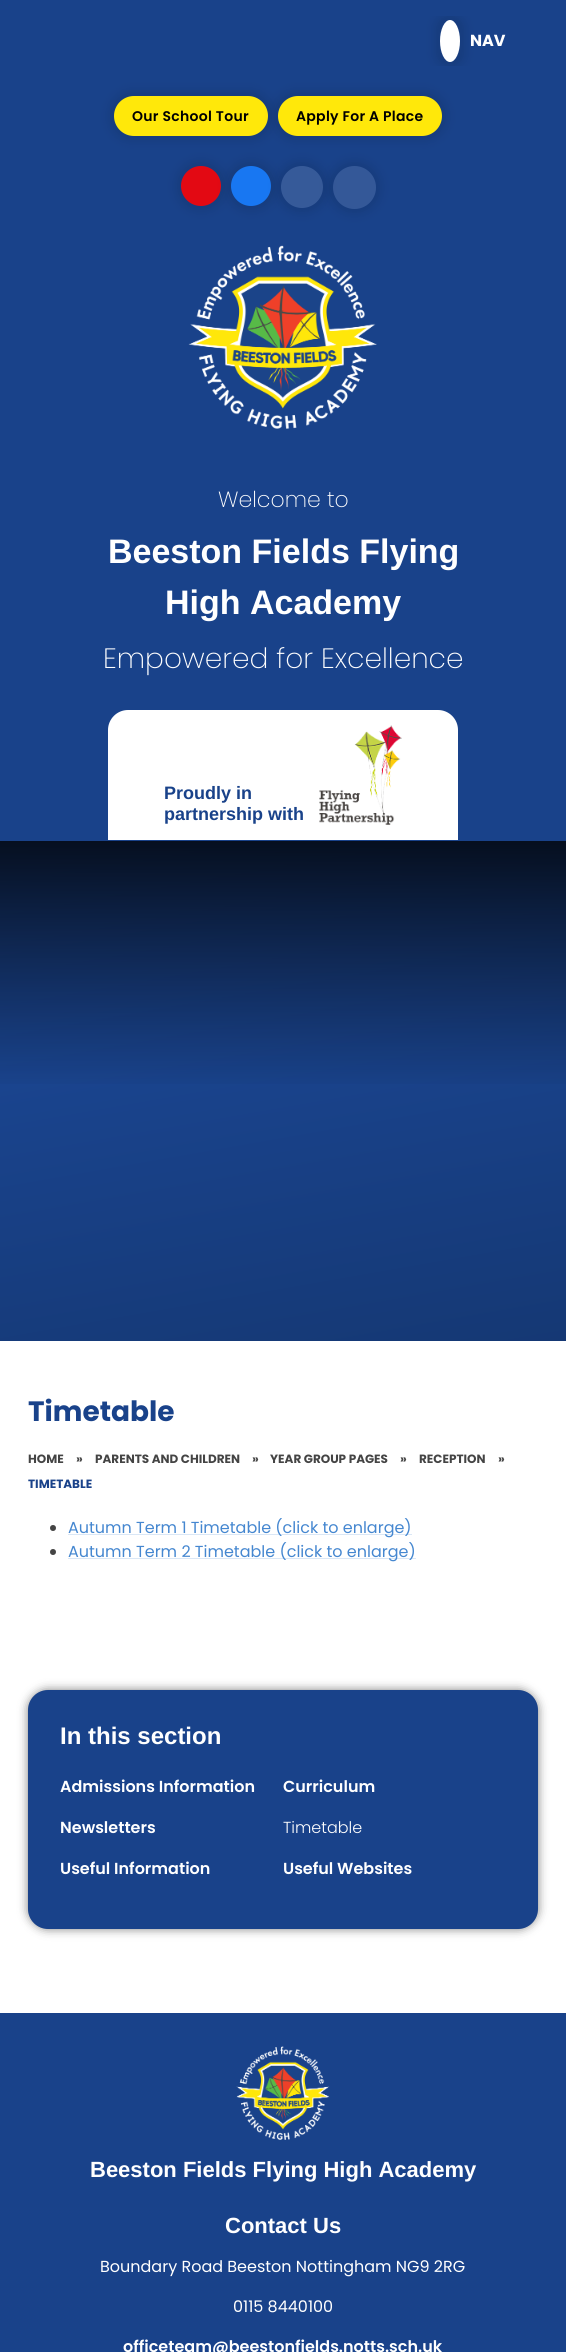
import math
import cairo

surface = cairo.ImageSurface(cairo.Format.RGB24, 566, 2352)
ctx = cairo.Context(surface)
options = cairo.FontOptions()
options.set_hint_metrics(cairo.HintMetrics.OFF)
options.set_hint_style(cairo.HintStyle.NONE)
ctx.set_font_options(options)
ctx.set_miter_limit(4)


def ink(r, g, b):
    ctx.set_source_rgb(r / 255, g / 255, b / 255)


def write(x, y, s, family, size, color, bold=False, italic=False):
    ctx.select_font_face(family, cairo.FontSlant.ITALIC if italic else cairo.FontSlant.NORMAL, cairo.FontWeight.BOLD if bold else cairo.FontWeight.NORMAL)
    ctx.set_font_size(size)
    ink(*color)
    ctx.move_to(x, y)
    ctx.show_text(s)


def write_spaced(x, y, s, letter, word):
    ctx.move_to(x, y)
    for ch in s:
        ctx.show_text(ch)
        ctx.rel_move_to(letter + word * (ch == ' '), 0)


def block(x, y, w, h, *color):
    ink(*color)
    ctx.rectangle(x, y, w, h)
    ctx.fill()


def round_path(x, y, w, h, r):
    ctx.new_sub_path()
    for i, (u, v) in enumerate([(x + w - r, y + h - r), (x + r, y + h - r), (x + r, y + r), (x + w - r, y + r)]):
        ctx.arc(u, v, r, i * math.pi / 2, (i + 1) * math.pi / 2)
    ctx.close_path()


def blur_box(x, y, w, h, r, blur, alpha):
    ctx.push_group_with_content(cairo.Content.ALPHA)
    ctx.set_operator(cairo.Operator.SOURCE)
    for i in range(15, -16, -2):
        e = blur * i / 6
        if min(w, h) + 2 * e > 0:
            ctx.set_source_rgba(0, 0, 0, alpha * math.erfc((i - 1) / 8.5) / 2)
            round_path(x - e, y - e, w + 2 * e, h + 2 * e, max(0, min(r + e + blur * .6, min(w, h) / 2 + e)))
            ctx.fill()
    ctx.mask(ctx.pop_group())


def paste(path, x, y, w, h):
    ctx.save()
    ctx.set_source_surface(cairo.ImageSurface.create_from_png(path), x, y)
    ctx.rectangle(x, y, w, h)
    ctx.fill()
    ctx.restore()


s1 = dict(family="Poppins", size=16, color=(255, 255, 255), bold=True)
s2 = dict(family="Poppins ExtraLight", size=22, color=(255, 255, 255))
s3 = dict(family="Liberation Sans", size=34, color=(255, 255, 255), bold=True)
s4 = dict(family="Poppins ExtraLight", size=28, color=(255, 255, 255))
s5 = dict(family="Liberation Sans", size=18, color=(25, 66, 138), bold=True)
s6 = dict(family="Poppins", size=28, color=(25, 66, 138), bold=True)
s7 = dict(family="Poppins", size=12, color=(68, 68, 68), bold=True)
s8 = dict(family="Poppins", size=12, color=(25, 66, 138), bold=True)
s9 = dict(family="Poppins", size=16, color=(69, 135, 208))
s10 = dict(family="Liberation Sans", size=24, color=(255, 255, 255), bold=True)
s11 = dict(family="Poppins SemiBold", size=16, color=(255, 255, 255))
s12 = dict(family="Poppins Light", size=16, color=(255, 255, 255))
s13 = dict(family="Liberation Sans", size=22, color=(255, 255, 255), bold=True)
s14 = dict(family="Poppins", size=16, color=(255, 255, 255))

ink(255, 255, 255)
ctx.paint()
block(0, 0, 566, 841, 25, 66, 138)
ctx.save()
ctx.rectangle(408, 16, 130, 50)
ctx.clip()
ink(0, 0, 0)
blur_box(435, 15, 30, 52, 15, 5, 0.1)
ctx.restore()
ink(255, 255, 255)
ctx.new_path()
ctx.move_to(450, 20)
ctx.curve_to(455.5, 20, 460, 29.5, 460, 41)
ctx.curve_to(460, 52.5, 455.5, 62, 450, 62)
ctx.curve_to(444.5, 62, 440, 52.5, 440, 41)
ctx.curve_to(440, 29.5, 444.5, 20, 450, 20)
ctx.close_path()
ctx.fill()
write(470, 46, "NAV", **s1)
ink(0, 0, 0)
blur_box(109, 91, 164, 50, 25, 5, 0.1)
ink(255, 232, 10)
round_path(115.5, 97.5, 151, 37, 18.5)
ctx.fill_preserve()
ctx.set_line_width(3)
ctx.stroke()
ctx.select_font_face("Poppins SemiBold")
ctx.set_font_size(14)
ink(0, 0, 0)
write_spaced(132, 121, "Our School Tour", 0.3, 0)
ink(0, 0, 0)
blur_box(273, 91, 174, 50, 25, 5, 0.1)
ink(255, 232, 10)
round_path(279.5, 97.5, 161, 37, 18.5)
ctx.fill_preserve()
ctx.stroke()
ink(0, 0, 0)
write_spaced(296, 121, "Apply For A Place", 0.3, 0)
ink(0, 0, 0)
blur_box(176, 161, 50, 50, 25, 5, 0.1)
ink(227, 9, 19)
ctx.arc(201, 186, 20, 0, 2 * math.pi)
ctx.fill()
ink(0, 0, 0)
blur_box(226, 161, 50, 50, 25, 5, 0.1)
ink(24, 119, 242)
ctx.arc(251, 186, 20, 0, 2 * math.pi)
ctx.fill()
ink(54, 90, 153)
ctx.arc(302, 187, 21, 0, 2 * math.pi)
ctx.fill()
ctx.save()
ctx.set_fill_rule(cairo.FillRule.EVEN_ODD)
ctx.new_path()
ctx.move_to(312, 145)
ctx.line_to(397, 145)
ctx.line_to(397, 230)
ctx.line_to(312, 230)
ctx.close_path()
ctx.move_to(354.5, 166)
ctx.curve_to(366.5, 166, 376, 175.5, 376, 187.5)
ctx.curve_to(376, 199.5, 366.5, 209, 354.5, 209)
ctx.curve_to(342.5, 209, 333, 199.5, 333, 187.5)
ctx.curve_to(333, 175.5, 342.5, 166, 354.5, 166)
ctx.close_path()
ctx.clip()
ink(0, 0, 0)
blur_box(328, 161, 53, 53, 26.5, 5, 0.1)
ctx.restore()
ctx.set_source_rgba(1, 1, 1, 0.12)
ctx.arc(354.5, 187.5, 21.5, 0, 2 * math.pi)
ctx.fill()
ctx.save()
ctx.set_fill_rule(cairo.FillRule.EVEN_ODD)
ctx.new_path()
ctx.move_to(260, 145)
ctx.line_to(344, 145)
ctx.line_to(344, 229)
ctx.line_to(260, 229)
ctx.close_path()
ctx.move_to(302, 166)
ctx.curve_to(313.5, 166, 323, 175.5, 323, 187)
ctx.curve_to(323, 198.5, 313.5, 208, 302, 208)
ctx.curve_to(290.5, 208, 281, 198.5, 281, 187)
ctx.curve_to(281, 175.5, 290.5, 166, 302, 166)
ctx.close_path()
ctx.clip()
ink(0, 0, 0)
blur_box(276, 161, 52, 52, 26, 5, 0.1)
ctx.restore()
paste("pic1.png", 188, 245, 189, 184)
write(218, 507, "Welcome to", **s2)
write(108, 563, "Beeston Fields Flying", **s3)
write(165, 614, "High Academy", **s3)
write(103, 668, "Empowered for Excellence", **s4)
ctx.new_path()
ctx.move_to(128, 710)
ctx.line_to(438, 710)
ctx.curve_to(449, 710, 458, 719, 458, 730)
ctx.line_to(458, 840)
ctx.line_to(108, 840)
ctx.line_to(108, 730)
ctx.curve_to(108, 719, 117, 710, 128, 710)
ctx.close_path()
ctx.fill()
write(164, 799, "Proudly in", **s5)
write(164, 820, "partnership with", **s5)
paste("pic2.png", 319, 725, 83, 100)
gradient = cairo.LinearGradient(232, 800, 334, 1382)
gradient.add_color_stop_rgba(0, 0.114, 0.298, 0.627, 1)
gradient.add_color_stop_rgba(1, 0.082, 0.22, 0.455, 1)
ctx.set_source(gradient)
ctx.rectangle(0, 841, 566, 500)
ctx.fill()
gradient = cairo.LinearGradient(283, 841, 283, 1091)
gradient.add_color_stop_rgba(0, 0, 0, 0, 0.8)
gradient.add_color_stop_rgba(1, 0, 0, 0, 0)
ctx.set_source(gradient)
ctx.rectangle(0, 841, 566, 243)
ctx.fill()
write(28, 1421, "Timetable", **s6)
write(28, 1463, "HOME", **s7)
write(76, 1463, "»", **s7)
write(95, 1463, "PARENTS AND CHILDREN", **s7)
write(252, 1463, "»", **s7)
write(270, 1463, "YEAR GROUP PAGES", **s7)
write(400, 1463, "»", **s7)
write(419, 1463, "RECEPTION", **s7)
write(498, 1463, "»", **s7)
write(28, 1488, "TIMETABLE", **s8)
ink(68, 68, 68)
ctx.new_path()
ctx.arc(53, 1528, 3, 0, 2 * math.pi)
ctx.fill()
block(68, 1534, 344, 1, 218, 231, 246)
write(68, 1533, "Autumn Term 1 Timetable (click to enlarge)", **s9)
ink(68, 68, 68)
ctx.new_path()
ctx.arc(53, 1552, 3, 0, 2 * math.pi)
ctx.fill()
block(68, 1558, 348, 1, 218, 231, 246)
write(68, 1557, "Autumn Term 2 Timetable (click to enlarge)", **s9)
ink(0, 0, 0)
blur_box(28, 1690, 510, 239, 20, 5, 0.5)
ink(25, 66, 138)
round_path(28, 1690, 510, 239, 20)
ctx.fill()
write(60, 1744, "In this section", **s10)
write(60, 1792, "Admissions Information", **s11)
write(283, 1792, "Curriculum", **s11)
write(60, 1833, "Newsletters", **s11)
write(283, 1833, "Timetable", **s12)
write(60, 1874, "Useful Information", **s11)
write(283, 1874, "Useful Websites", **s11)
block(0, 2013, 566, 339, 25, 66, 138)
paste("pic3.png", 236, 2046, 94, 94)
write(90, 2177, "Beeston Fields Flying High Academy", **s13)
write(225, 2233, "Contact Us", **s13)
write(100, 2272, "Boundary Road Beeston Nottingham NG9 2RG", **s14)
write(233, 2312, "0115 8440100", **s14)
write(123, 2352, "officeteam@beestonfields.notts.sch.uk", **s11)
surface.write_to_png("screenshot.png")
